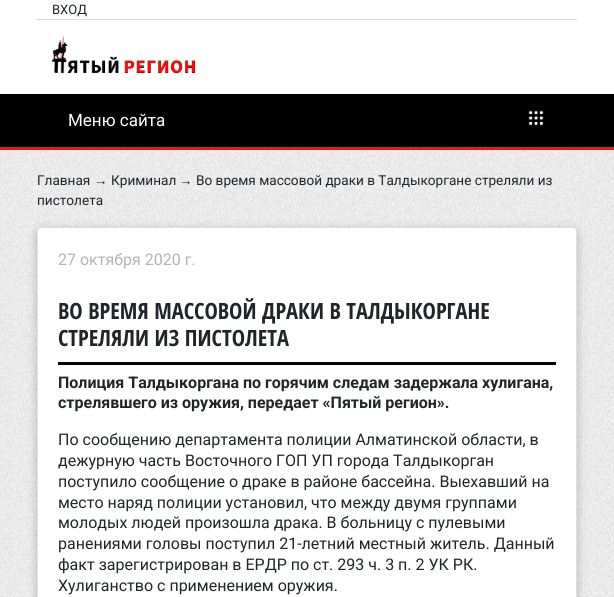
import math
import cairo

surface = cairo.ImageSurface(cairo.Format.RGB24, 614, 597)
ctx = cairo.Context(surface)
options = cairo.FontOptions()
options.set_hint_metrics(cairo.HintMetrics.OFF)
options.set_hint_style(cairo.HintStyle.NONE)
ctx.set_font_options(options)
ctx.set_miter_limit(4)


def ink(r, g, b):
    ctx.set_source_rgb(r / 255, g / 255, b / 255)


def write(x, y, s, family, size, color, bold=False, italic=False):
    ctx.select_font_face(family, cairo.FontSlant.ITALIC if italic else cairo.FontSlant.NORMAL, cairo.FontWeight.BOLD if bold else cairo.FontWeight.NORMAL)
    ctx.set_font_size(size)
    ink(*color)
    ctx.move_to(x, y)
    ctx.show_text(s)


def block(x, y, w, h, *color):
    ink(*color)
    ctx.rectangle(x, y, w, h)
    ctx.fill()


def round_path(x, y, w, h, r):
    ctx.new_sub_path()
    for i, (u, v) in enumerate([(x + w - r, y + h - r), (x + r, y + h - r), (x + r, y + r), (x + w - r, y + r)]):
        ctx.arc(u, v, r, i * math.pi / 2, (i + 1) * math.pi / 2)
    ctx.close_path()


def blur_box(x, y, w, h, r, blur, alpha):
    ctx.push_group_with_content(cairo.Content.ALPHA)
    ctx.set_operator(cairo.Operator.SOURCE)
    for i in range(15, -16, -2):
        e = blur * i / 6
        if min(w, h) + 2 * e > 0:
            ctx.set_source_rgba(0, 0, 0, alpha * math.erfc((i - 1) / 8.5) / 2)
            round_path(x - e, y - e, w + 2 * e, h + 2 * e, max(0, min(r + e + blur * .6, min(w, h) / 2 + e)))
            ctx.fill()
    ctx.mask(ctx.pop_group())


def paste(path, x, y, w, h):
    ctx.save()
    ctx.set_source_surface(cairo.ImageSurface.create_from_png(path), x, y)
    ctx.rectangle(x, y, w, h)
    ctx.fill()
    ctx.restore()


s1 = dict(family="Roboto", size=13, color=(33, 37, 41))
s2 = dict(family="Roboto", size=17, color=(255, 255, 255))
s3 = dict(family="Roboto", size=13.6, color=(33, 37, 41))
s4 = dict(family="Liberation Sans", size=13.6, color=(33, 37, 41))
s5 = dict(family="Roboto", size=16, color=(173, 181, 189))
s6 = dict(family="Open Sans Condensed", size=22.4, color=(33, 37, 41), bold=True)
s7 = dict(family="Roboto", size=16, color=(33, 37, 41), bold=True)
s8 = dict(family="Roboto", size=16, color=(33, 37, 41))

ink(255, 255, 255)
ctx.paint()
paste("pic1.png", 0, 150, 614, 447)
block(37, 19, 540, 1, 221, 221, 221)
write(52, 14, "ВХОД", **s1)
paste("pic2.png", 52, 36, 144, 38)
block(0, 94, 614, 53, 0, 0, 0)
block(0, 147, 614, 3, 232, 26, 26)
write(68, 126, "Меню сайта", **s2)
paste("pic3.png", 528, 110, 16, 16)
write(37, 185, "Главная", **s3)
write(94, 185, "→", **s4)
write(111, 185, "Криминал", **s3)
write(179, 185, "→", **s4)
write(196, 185, "Во время массовой драки в Талдыкоргане стреляли из", **s3)
write(37, 205, "пистолета", **s3)
ink(0, 0, 0)
blur_box(37, 230, 540, 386, 4, 5, 0.25)
ink(255, 255, 255)
round_path(37, 227, 540, 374, 4)
ctx.fill()
round_path(37.5, 227.5, 539, 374, 3.5)
ctx.set_source_rgba(0, 0, 0, 0.12)
ctx.set_line_width(1)
ctx.stroke()
write(58, 265, "27 октября 2020 г.", **s5)
block(58, 362, 498, 3, 0, 0, 0)
write(58, 319, "ВО ВРЕМЯ МАССОВОЙ ДРАКИ В ТАЛДЫКОРГАНЕ", **s6)
write(58, 346, "СТРЕЛЯЛИ ИЗ ПИСТОЛЕТА", **s6)
write(58, 388, "Полиция Талдыкоргана по горячим следам задержала хулигана,", **s7)
write(58, 408, "стрелявшего из оружия, передает «Пятый регион».", **s7)
write(58, 445, "По сообщению департамента полиции Алматинской области, в", **s8)
write(58, 466, "дежурную часть Восточного ГОП УП города Талдыкорган", **s8)
write(58, 487, "поступило сообщение о драке в районе бассейна. Выехавший на", **s8)
write(58, 508, "место наряд полиции установил, что между двумя группами", **s8)
write(58, 528, "молодых людей произошла драка. В больницу с пулевыми", **s8)
write(58, 549, "ранениями головы поступил 21-летний местный житель. Данный", **s8)
write(58, 570, "факт зарегистрирован в ЕРДР по ст. 293 ч. 3 п. 2 УК РК.", **s8)
write(58, 591, "Хулиганство с применением оружия.", **s8)
surface.write_to_png("screenshot.png")
